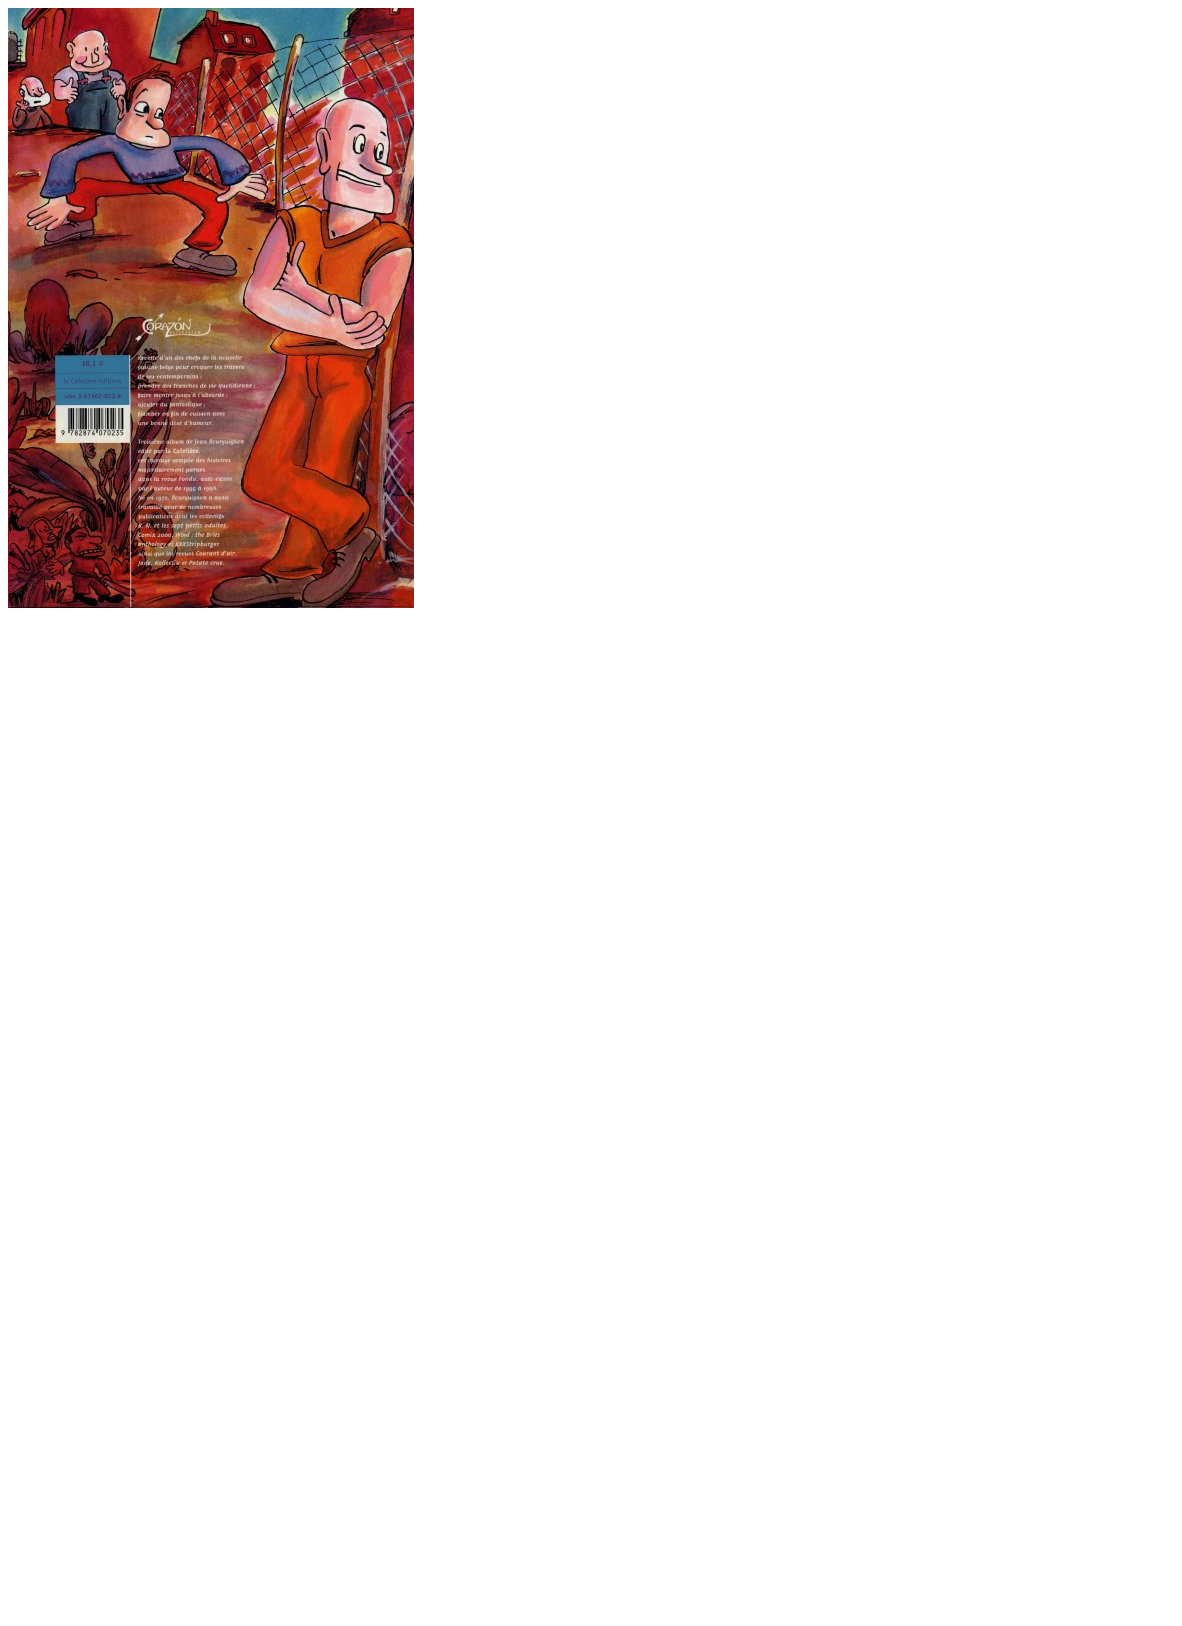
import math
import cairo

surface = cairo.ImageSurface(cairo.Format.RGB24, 1182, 1626)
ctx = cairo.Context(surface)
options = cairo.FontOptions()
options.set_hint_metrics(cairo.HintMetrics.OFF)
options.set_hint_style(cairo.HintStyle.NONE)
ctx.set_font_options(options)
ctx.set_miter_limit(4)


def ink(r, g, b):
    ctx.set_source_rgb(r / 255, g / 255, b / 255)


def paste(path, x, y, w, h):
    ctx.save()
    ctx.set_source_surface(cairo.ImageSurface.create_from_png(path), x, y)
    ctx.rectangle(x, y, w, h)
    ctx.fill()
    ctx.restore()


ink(255, 255, 255)
ctx.paint()
paste("pic1.png", 8, 8, 406, 600)
surface.write_to_png("screenshot.png")
